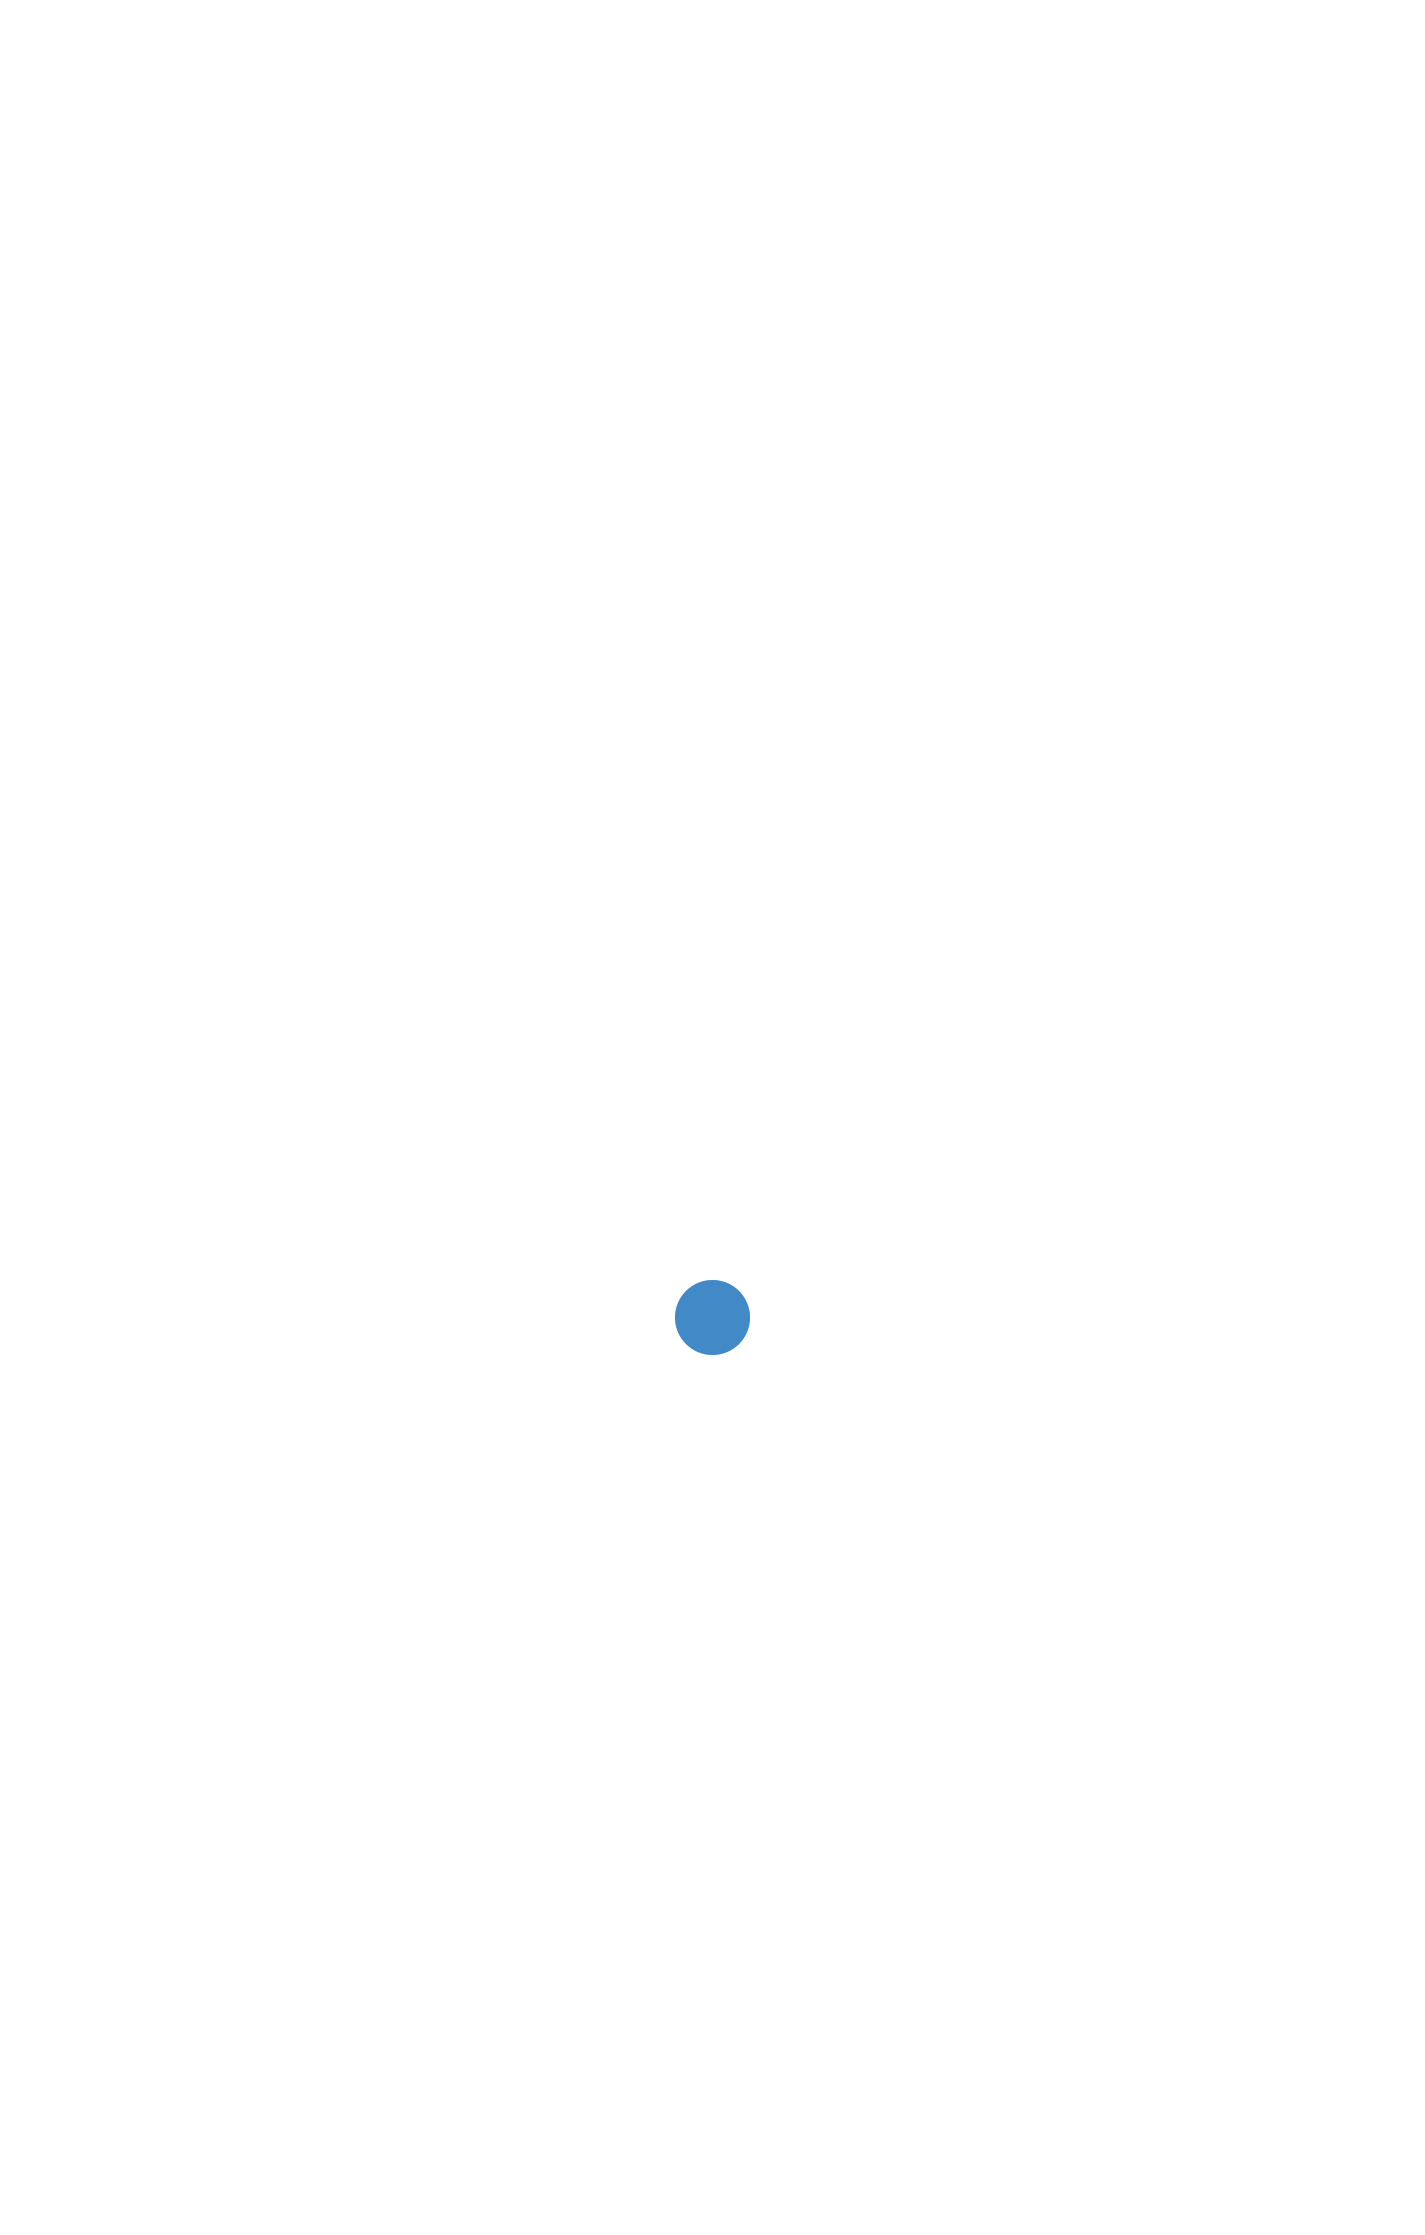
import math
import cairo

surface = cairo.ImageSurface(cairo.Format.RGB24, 1425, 2235)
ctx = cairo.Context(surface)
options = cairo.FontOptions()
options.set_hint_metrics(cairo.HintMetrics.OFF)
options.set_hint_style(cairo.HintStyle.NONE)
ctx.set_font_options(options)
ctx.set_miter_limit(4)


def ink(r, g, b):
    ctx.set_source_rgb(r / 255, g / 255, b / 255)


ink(255, 255, 255)
ctx.paint()
ink(120, 171, 216)
ctx.arc(712.5, 1317.5, 37.5, 0, 2 * math.pi)
ctx.fill()
ctx.set_source_rgba(0.118, 0.451, 0.745, 0.6)
ctx.arc(712.5, 1317.5, 37.5, 0, 2 * math.pi)
ctx.fill()
surface.write_to_png("screenshot.png")
